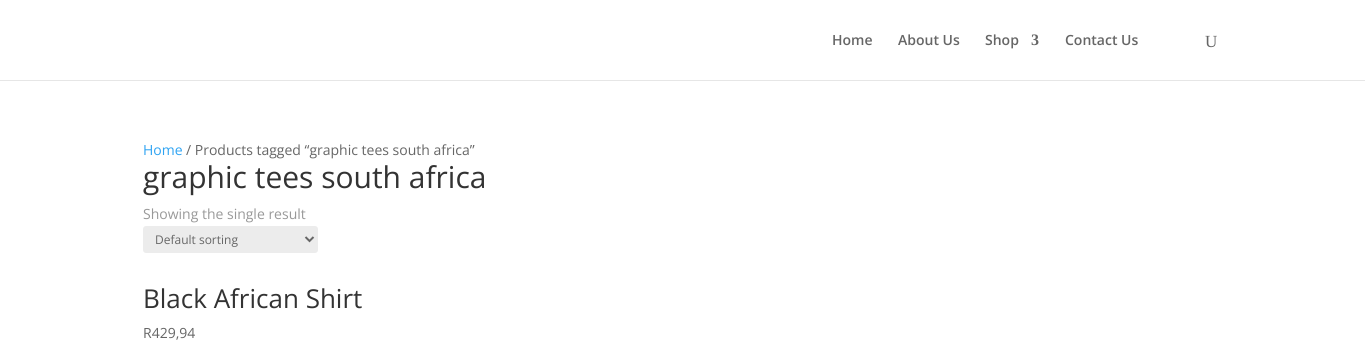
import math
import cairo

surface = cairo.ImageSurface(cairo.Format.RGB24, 1365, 350)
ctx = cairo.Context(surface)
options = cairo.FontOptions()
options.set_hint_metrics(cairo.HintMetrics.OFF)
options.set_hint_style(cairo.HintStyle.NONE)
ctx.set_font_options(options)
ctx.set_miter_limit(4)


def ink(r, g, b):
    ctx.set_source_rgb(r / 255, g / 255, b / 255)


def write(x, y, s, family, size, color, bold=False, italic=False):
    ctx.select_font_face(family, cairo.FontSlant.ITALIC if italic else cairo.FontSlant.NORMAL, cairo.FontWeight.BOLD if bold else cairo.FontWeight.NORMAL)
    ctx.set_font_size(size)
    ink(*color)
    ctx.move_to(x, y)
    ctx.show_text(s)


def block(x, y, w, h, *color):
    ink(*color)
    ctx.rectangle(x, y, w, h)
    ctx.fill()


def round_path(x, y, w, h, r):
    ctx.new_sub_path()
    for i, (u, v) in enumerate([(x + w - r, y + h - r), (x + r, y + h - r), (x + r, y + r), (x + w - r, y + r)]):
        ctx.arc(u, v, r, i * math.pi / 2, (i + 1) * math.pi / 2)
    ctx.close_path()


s1 = dict(family="Open Sans SemiBold", size=14, color=(102, 102, 102))
s2 = dict(family="Liberation Serif", size=16, color=(102, 102, 102), bold=True)
s3 = dict(family="Liberation Serif", size=17, color=(102, 102, 102))
s4 = dict(family="Open Sans", size=14, color=(46, 163, 242))
s5 = dict(family="Open Sans", size=14, color=(102, 102, 102))
s6 = dict(family="Open Sans", size=30, color=(51, 51, 51))
s7 = dict(family="Open Sans", size=14, color=(153, 153, 153))
s8 = dict(family="Open Sans", size=12, color=(102, 102, 102))
s9 = dict(family="Open Sans", size=26, color=(51, 51, 51))

ink(255, 255, 255)
ctx.paint()
block(0, 80, 1365, 1, 230, 230, 230)
write(832, 45, "Home", **s1)
write(898, 45, "About Us", **s1)
write(985, 45, "Shop", **s1)
write(1031, 45, "3", **s2)
write(1065, 45, "Contact Us", **s1)
write(1205, 47, "U", **s3)
write(143, 155, "Home", **s4)
write(186, 155, "/ Products tagged “graphic tees south africa”", **s5)
write(143, 188, "graphic tees south africa", **s6)
write(143, 219, "Showing the single result", **s7)
ink(236, 236, 236)
round_path(143, 226, 175, 27, 3)
ctx.fill()
ctx.new_path()
ctx.move_to(305.5, 237)
ctx.line_to(309.5, 241)
ctx.line_to(313.5, 237)
ink(102, 102, 102)
ctx.stroke()
write(155, 244, "Default sorting", **s8)
write(143, 308, "Black African Shirt", **s9)
write(143, 338, "R429,94", **s5)
surface.write_to_png("screenshot.png")
